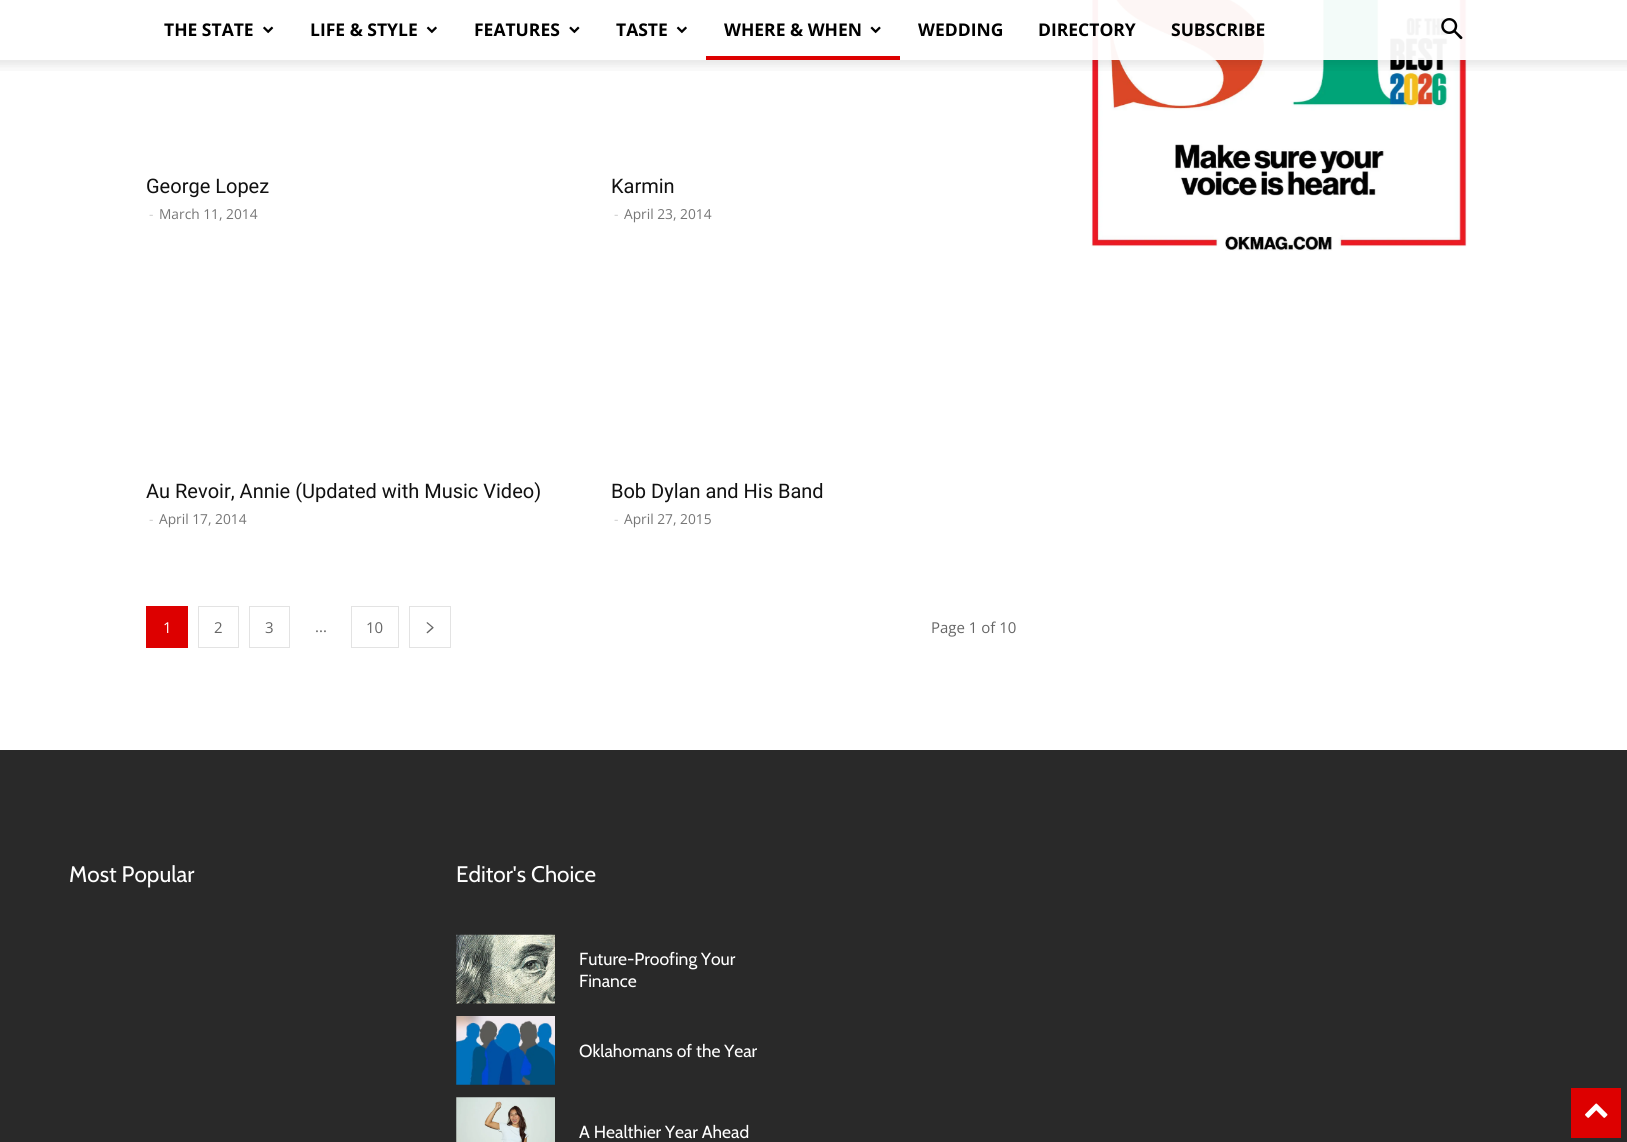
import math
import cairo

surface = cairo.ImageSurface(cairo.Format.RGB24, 1627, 1142)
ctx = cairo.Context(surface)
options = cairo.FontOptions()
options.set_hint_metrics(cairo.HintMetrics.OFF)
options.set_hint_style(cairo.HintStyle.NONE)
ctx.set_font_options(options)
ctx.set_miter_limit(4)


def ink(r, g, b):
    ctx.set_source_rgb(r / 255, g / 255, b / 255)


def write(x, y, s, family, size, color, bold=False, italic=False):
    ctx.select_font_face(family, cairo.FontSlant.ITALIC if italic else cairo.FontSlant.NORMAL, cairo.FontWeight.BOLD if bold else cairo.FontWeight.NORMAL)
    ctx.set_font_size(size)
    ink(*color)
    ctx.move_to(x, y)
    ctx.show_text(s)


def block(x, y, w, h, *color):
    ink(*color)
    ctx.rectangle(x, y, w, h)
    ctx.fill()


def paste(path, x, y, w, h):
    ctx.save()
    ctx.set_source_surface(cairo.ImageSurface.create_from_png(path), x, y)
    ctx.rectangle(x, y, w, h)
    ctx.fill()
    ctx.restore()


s1 = dict(family="Open Sans", size=17.5, color=(0, 0, 0), bold=True)
s2 = dict(family="Roboto", size=20, color=(17, 17, 17))
s3 = dict(family="Open Sans", size=13.75, color=(204, 204, 204))
s4 = dict(family="Open Sans", size=13.75, color=(118, 118, 118))
s5 = dict(family="Open Sans", size=15, color=(255, 255, 255))
s6 = dict(family="Open Sans", size=15, color=(102, 102, 102))
s7 = dict(family="Cabin", size=22.5, color=(255, 255, 255))
s8 = dict(family="Cabin", size=17.5, color=(255, 255, 255))

ink(255, 255, 255)
ctx.paint()
paste("pic7.png", 1091, 0, 376, 251)
ctx.set_source_rgba(1, 1, 1, 0.95)
ctx.rectangle(1091, 0, 376, 60)
ctx.fill()
write(164, 36, "THE STATE", **s1)
paste("pic1.png", 263, 26, 11, 8)
write(310, 36, "LIFE & STYLE", **s1)
paste("pic2.png", 426, 26, 11, 8)
write(474, 36, "FEATURES", **s1)
paste("pic3.png", 569, 26, 11, 8)
write(616, 36, "TASTE", **s1)
paste("pic2.png", 676, 26, 11, 8)
write(724, 36, "WHERE & WHEN", **s1)
paste("pic4.png", 870, 26, 11, 8)
block(706, 56, 194, 4, 221, 0, 0)
write(918, 36, "WEDDING", **s1)
write(1038, 36, "DIRECTORY", **s1)
write(1171, 36, "SUBSCRIBE", **s1)
paste("pic5.png", 1441, 18, 22, 22)
paste("pic6.png", 0, 60, 1627, 11)
write(146, 193, "George Lopez", **s2)
write(149, 219, "-", **s3)
write(159, 219, "March 11, 2014", **s4)
write(611, 193, "Karmin", **s2)
write(614, 219, "-", **s3)
write(624, 219, "April 23, 2014", **s4)
write(146, 498, "Au Revoir, Annie (Updated with Music Video)", **s2)
write(149, 524, "-", **s3)
write(159, 524, "April 17, 2014", **s4)
write(611, 498, "Bob Dylan and His Band", **s2)
write(614, 524, "-", **s3)
write(624, 524, "April 27, 2015", **s4)
block(146, 606, 42, 42, 221, 0, 0)
write(163, 633, "1", **s5)
ctx.rectangle(198.5, 606.5, 40, 41)
ink(227, 227, 227)
ctx.set_line_width(1)
ctx.stroke()
write(214, 633, "2", **s6)
ctx.rectangle(249.5, 606.5, 40, 41)
ink(227, 227, 227)
ctx.stroke()
write(265, 633, "3", **s6)
write(315, 632, "...", **s6)
ctx.rectangle(351.5, 606.5, 47, 41)
ink(227, 227, 227)
ctx.stroke()
write(366, 633, "10", **s6)
ctx.rectangle(409.5, 606.5, 41, 41)
ink(227, 227, 227)
ctx.stroke()
paste("pic8.png", 426, 622, 8, 12)
write(931, 633, "Page 1 of 10", **s6)
block(0, 750, 1627, 392, 41, 41, 41)
write(69, 882, "Most Popular", **s7)
write(456, 882, "Editor's Choice", **s7)
paste("pic9.png", 456, 934, 99, 70)
write(579, 965, "Future-Proofing Your", **s8)
write(579, 987, "Finance", **s8)
paste("pic10.png", 456, 1016, 99, 69)
write(579, 1057, "Oklahomans of the Year", **s8)
paste("pic11.png", 456, 1097, 99, 45)
write(579, 1138, "A Healthier Year Ahead", **s8)
block(1571, 1088, 50, 50, 221, 0, 0)
paste("pic12.png", 1585, 1103, 23, 15)
surface.write_to_png("screenshot.png")
